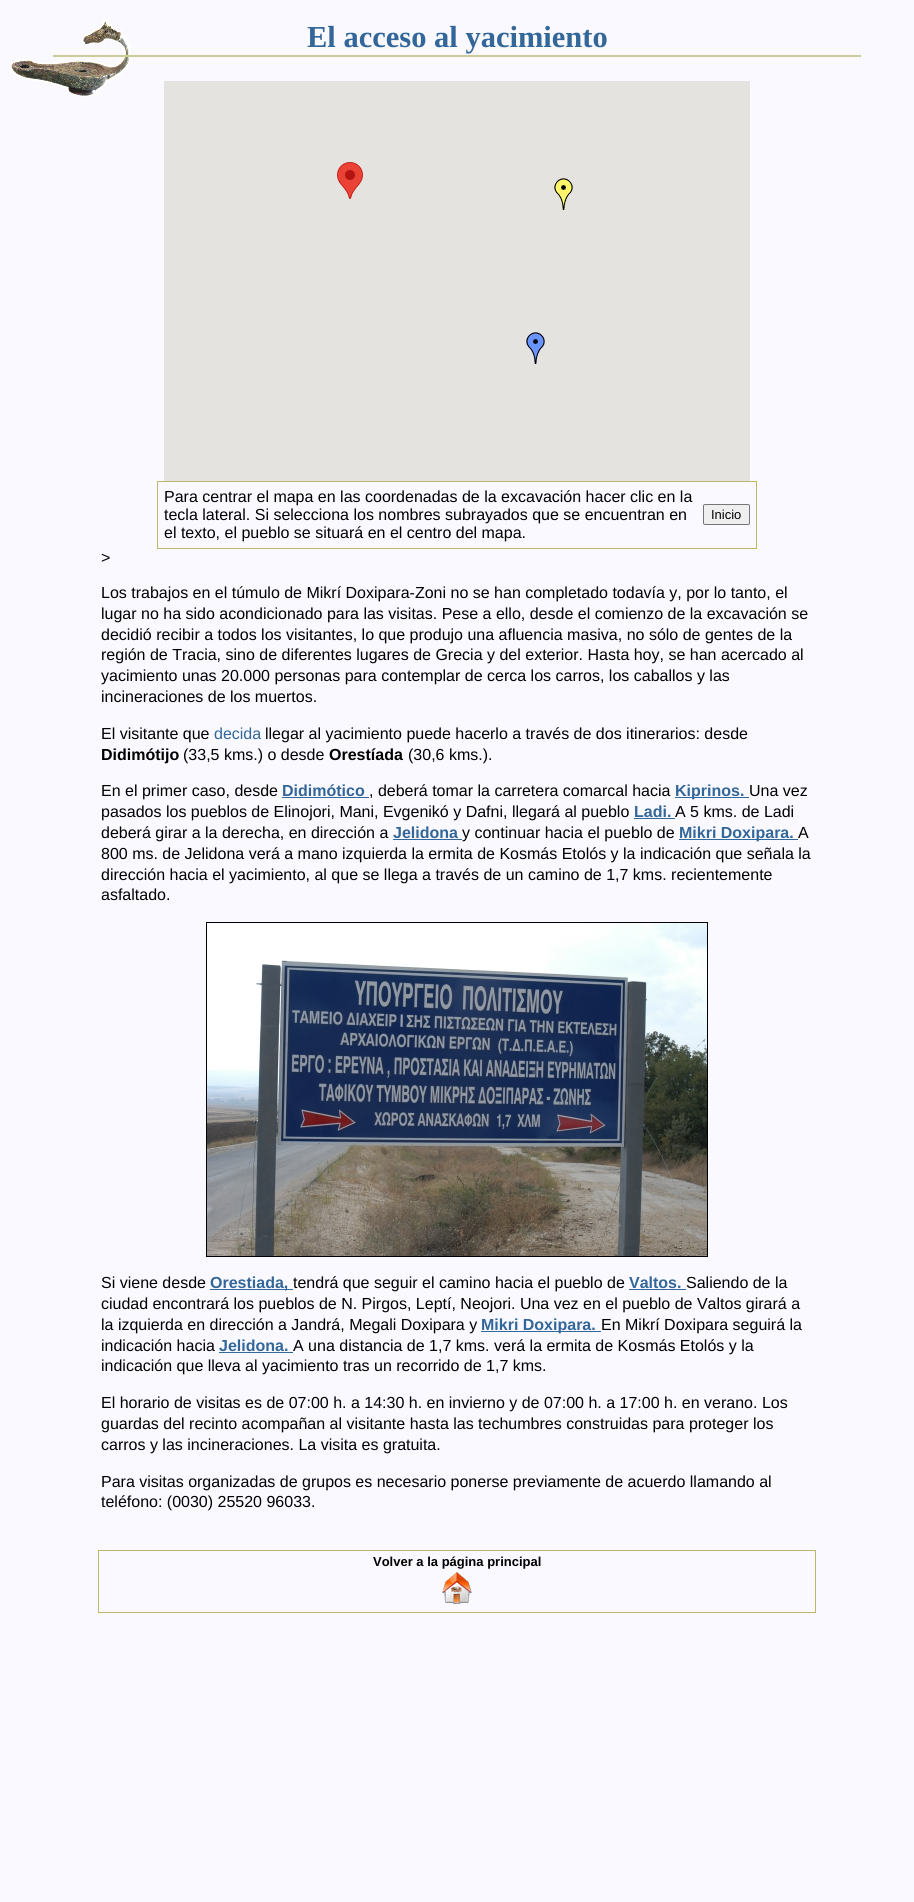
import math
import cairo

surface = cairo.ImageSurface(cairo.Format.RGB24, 914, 1902)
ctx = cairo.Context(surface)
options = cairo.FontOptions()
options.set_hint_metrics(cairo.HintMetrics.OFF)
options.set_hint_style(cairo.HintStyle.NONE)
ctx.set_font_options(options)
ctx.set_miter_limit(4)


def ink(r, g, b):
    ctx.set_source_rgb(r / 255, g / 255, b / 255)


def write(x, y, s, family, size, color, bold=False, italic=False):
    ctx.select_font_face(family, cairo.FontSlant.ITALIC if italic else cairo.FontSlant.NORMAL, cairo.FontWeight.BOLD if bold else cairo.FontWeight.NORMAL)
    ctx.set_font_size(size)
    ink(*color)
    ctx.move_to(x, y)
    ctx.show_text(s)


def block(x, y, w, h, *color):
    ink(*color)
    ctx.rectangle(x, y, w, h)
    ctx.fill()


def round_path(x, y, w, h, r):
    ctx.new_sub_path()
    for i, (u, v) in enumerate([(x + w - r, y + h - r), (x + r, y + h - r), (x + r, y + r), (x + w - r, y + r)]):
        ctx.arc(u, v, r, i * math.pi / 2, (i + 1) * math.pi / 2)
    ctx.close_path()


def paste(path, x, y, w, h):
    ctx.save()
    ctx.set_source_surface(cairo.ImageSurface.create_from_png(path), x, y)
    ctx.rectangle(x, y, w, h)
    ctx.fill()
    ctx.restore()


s1 = dict(family="Liberation Serif", size=30.5, color=(51, 102, 153), bold=True)
s2 = dict(family="Liberation Sans", size=16, color=(0, 0, 0))
s3 = dict(family="Liberation Sans", size=13, color=(0, 0, 0))
s4 = dict(family="Liberation Sans", size=16, color=(51, 102, 153))
s5 = dict(family="Liberation Sans", size=16, color=(0, 0, 0), bold=True)
s6 = dict(family="Liberation Sans", size=16, color=(51, 102, 153), bold=True)
s7 = dict(family="Liberation Sans", size=13, color=(0, 0, 0), bold=True)

ink(249, 249, 255)
ctx.paint()
paste("pic1.png", 10, 20, 121, 77)
block(53, 55, 808, 2, 204, 204, 153)
write(307, 47, "El acceso al yacimiento", **s1)
block(164, 81, 586, 400, 229, 227, 223)
paste("pic2.png", 337, 162, 26, 37)
paste("pic3.png", 554, 178, 19, 32)
paste("pic4.png", 526, 332, 19, 32)
ctx.rectangle(157.5, 481.5, 599, 67)
ink(189, 183, 107)
ctx.set_line_width(1)
ctx.stroke()
write(164, 502, "Para centrar el mapa en las coordenadas de la excavación hacer clic en la", **s2)
write(164, 520, "tecla lateral. Si selecciona los nombres subrayados que se encuentran en", **s2)
write(164, 538, "el texto, el pueblo se situará en el centro del mapa.", **s2)
ink(239, 239, 239)
round_path(703.5, 504.5, 46, 20, 1.5)
ctx.fill_preserve()
ink(118, 118, 118)
ctx.stroke()
write(711, 519, "Inicio", **s3)
write(101, 563, ">", **s2)
write(101, 598, "Los trabajos en el túmulo de Mikrí Doxipara-Zoni no se han completado todavía y, por lo tanto, el", **s2)
write(101, 619, "lugar no ha sido acondicionado para las visitas. Pese a ello, desde el comienzo de la excavación se", **s2)
write(101, 640, "decidió recibir a todos los visitantes, lo que produjo una afluencia masiva, no sólo de gentes de la", **s2)
write(101, 660, "región de Tracia, sino de diferentes lugares de Grecia y del exterior. Hasta hoy, se han acercado al", **s2)
write(101, 681, "yacimiento unas 20.000 personas para contemplar de cerca los carros, los caballos y las", **s2)
write(101, 702, "incineraciones de los muertos.", **s2)
write(101, 739, "El visitante que", **s2)
write(214, 739, "decida", **s4)
write(265, 739, "llegar al yacimiento puede hacerlo a través de dos itinerarios: desde", **s2)
write(101, 760, "Didimótijo", **s5)
write(183, 760, "(33,5 kms.) o desde", **s2)
write(329, 760, "Orestíada", **s5)
write(408, 760, "(30,6 kms.).", **s2)
write(101, 796, "En el primer caso, desde", **s2)
write(282, 796, "Didimótico", **s6)
block(282, 797, 87, 1, 51, 102, 153)
write(369, 796, ", deberá tomar la carretera comarcal hacia", **s2)
block(675, 797, 74, 1, 51, 102, 153)
write(675, 796, "Kiprinos.", **s6)
write(749, 796, "Una vez", **s2)
write(101, 817, "pasados los pueblos de Elinojori, Mani, Evgenikó y Dafni, llegará al pueblo", **s2)
write(634, 817, "Ladi.", **s6)
block(634, 818, 41, 1, 51, 102, 153)
write(675, 817, "A 5 kms. de Ladi", **s2)
write(101, 838, "deberá girar a la derecha, en dirección a", **s2)
write(393, 838, "Jelidona", **s6)
block(393, 839, 69, 1, 51, 102, 153)
write(462, 838, "y continuar hacia el pueblo de", **s2)
block(679, 839, 119, 1, 51, 102, 153)
write(679, 838, "Mikri Doxipara.", **s6)
write(798, 838, "A", **s2)
write(101, 859, "800 ms. de Jelidona verá a mano izquierda la ermita de Kosmás Etolós y la indicación que señala la", **s2)
write(101, 880, "dirección hacia el yacimiento, al que se llega a través de un camino de 1,7 kms. recientemente", **s2)
write(101, 900, "asfaltado.", **s2)
ctx.rectangle(206.5, 922.5, 501, 334)
ctx.stroke()
paste("pic5.png", 207, 923, 500, 333)
write(101, 1288, "Si viene desde", **s2)
block(210, 1289, 83, 1, 51, 102, 153)
write(210, 1288, "Orestiada,", **s6)
write(293, 1288, "tendrá que seguir el camino hacia el pueblo de", **s2)
write(629, 1288, "Valtos.", **s6)
block(629, 1289, 57, 1, 51, 102, 153)
write(686, 1288, "Saliendo de la", **s2)
write(101, 1309, "ciudad encontrará los pueblos de N. Pirgos, Leptí, Neojori. Una vez en el pueblo de Valtos girará a", **s2)
write(101, 1330, "la izquierda en dirección a Jandrá, Megali Doxipara y", **s2)
block(481, 1331, 120, 1, 51, 102, 153)
write(481, 1330, "Mikri Doxipara.", **s6)
write(601, 1330, "En Mikrí Doxipara seguirá la", **s2)
write(101, 1351, "indicación hacia", **s2)
write(219, 1351, "Jelidona.", **s6)
block(219, 1352, 74, 1, 51, 102, 153)
write(293, 1351, "A una distancia de 1,7 kms. verá la ermita de Kosmás Etolós y la", **s2)
write(101, 1371, "indicación que lleva al yacimiento tras un recorrido de 1,7 kms.", **s2)
write(101, 1408, "El horario de visitas es de 07:00 h. a 14:30 h. en invierno y de 07:00 h. a 17:00 h. en verano. Los", **s2)
write(101, 1429, "guardas del recinto acompañan al visitante hasta las techumbres construidas para proteger los", **s2)
write(101, 1450, "carros y las incineraciones. La visita es gratuita.", **s2)
write(101, 1487, "Para visitas organizadas de grupos es necesario ponerse previamente de acuerdo llamando al", **s2)
write(101, 1507, "teléfono: (0030) 25520 96033.", **s2)
ctx.rectangle(98.5, 1550.5, 717, 62)
ink(189, 183, 107)
ctx.stroke()
write(373, 1566, "Volver a la página principal", **s7)
paste("pic6.png", 442, 1572, 30, 32)
surface.write_to_png("screenshot.png")
